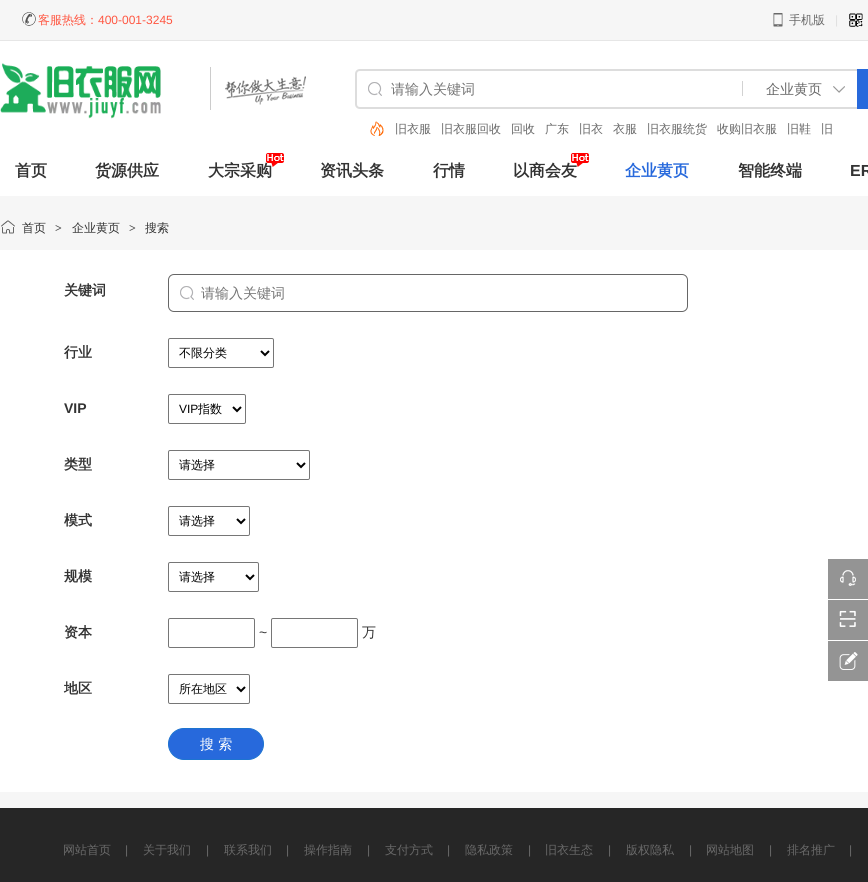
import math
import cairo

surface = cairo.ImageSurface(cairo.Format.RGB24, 868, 882)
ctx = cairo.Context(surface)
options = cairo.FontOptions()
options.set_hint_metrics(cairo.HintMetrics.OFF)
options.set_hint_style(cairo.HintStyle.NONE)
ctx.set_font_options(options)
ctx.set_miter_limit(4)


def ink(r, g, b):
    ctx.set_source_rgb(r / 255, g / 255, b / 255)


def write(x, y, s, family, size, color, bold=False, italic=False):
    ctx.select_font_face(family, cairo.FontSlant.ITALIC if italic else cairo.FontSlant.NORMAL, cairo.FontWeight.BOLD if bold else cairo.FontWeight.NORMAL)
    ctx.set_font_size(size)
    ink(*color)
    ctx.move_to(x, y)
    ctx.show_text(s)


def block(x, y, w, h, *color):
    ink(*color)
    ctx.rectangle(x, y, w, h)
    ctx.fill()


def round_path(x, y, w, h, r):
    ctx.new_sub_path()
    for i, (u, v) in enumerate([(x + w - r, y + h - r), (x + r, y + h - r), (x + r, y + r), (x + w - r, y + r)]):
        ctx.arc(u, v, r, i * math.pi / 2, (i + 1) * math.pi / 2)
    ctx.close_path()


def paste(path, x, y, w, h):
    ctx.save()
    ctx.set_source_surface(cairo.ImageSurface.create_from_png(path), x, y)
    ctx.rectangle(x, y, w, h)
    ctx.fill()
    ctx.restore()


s1 = dict(family="WenQuanYi Zen Hei Medium", size=12, color=(255, 86, 65))
s2 = dict(family="Liberation Sans", size=12, color=(255, 86, 65))
s3 = dict(family="WenQuanYi Zen Hei Medium", size=12, color=(105, 105, 105))
s4 = dict(family="Liberation Sans", size=12, color=(224, 224, 224))
s5 = dict(family="WenQuanYi Zen Hei Medium", size=14, color=(117, 117, 117))
s6 = dict(family="WenQuanYi Zen Hei Medium", size=14, color=(105, 105, 105))
s7 = dict(family="WenQuanYi Zen Hei", size=16, color=(51, 51, 51), bold=True)
s8 = dict(family="WenQuanYi Zen Hei", size=16, color=(39, 105, 220), bold=True)
s9 = dict(family="Liberation Sans", size=16, color=(51, 51, 51), bold=True)
s10 = dict(family="WenQuanYi Zen Hei Medium", size=12, color=(51, 51, 51))
s11 = dict(family="Liberation Serif", size=12, color=(68, 68, 68), bold=True)
s12 = dict(family="WenQuanYi Zen Hei", size=14, color=(51, 51, 51), bold=True)
s13 = dict(family="WenQuanYi Zen Hei Medium", size=12, color=(0, 0, 0))
s14 = dict(family="Liberation Sans", size=14, color=(51, 51, 51), bold=True)
s15 = dict(family="Liberation Sans", size=12, color=(0, 0, 0))
s16 = dict(family="Liberation Sans", size=14, color=(51, 51, 51))
s17 = dict(family="WenQuanYi Zen Hei Medium", size=14, color=(51, 51, 51))
s18 = dict(family="WenQuanYi Zen Hei Medium", size=14, color=(255, 255, 255))
s19 = dict(family="Liberation Sans", size=12, color=(105, 105, 105))

ink(246, 246, 246)
ctx.paint()
block(0, 40, 868, 1, 230, 230, 230)
paste("pic1.png", 22, 12, 14, 14)
write(38, 24, "客服热线：", **s1)
write(98, 24, "400-001-3245", **s2)
paste("pic2.png", 773, 13, 10, 14)
write(789, 24, "手机版", **s3)
write(835, 24, "|", **s4)
paste("pic3.png", 849, 13, 14, 14)
block(0, 41, 868, 155, 255, 255, 255)
paste("pic4.png", 0, 63, 161, 56)
paste("pic5.png", 210, 67, 96, 43)
ink(221, 221, 221)
ctx.set_fill_rule(cairo.FillRule.EVEN_ODD)
ctx.new_path()
ctx.move_to(360, 69)
ctx.line_to(857, 69)
ctx.line_to(857, 109)
ctx.line_to(360, 109)
ctx.curve_to(357, 109, 355, 107, 355, 104)
ctx.line_to(355, 74)
ctx.curve_to(355, 71, 357, 69, 360, 69)
ctx.close_path()
ctx.move_to(360, 71)
ctx.line_to(857, 71)
ctx.line_to(857, 107)
ctx.line_to(360, 107)
ctx.curve_to(358, 107, 357, 106, 357, 104)
ctx.line_to(357, 74)
ctx.curve_to(357, 72, 358, 71, 360, 71)
ctx.close_path()
ctx.fill()
paste("pic6.png", 368, 82, 14, 14)
write(391, 94, "请输入关键词", **s5)
block(742, 81, 1, 15, 210, 210, 210)
paste("pic7.png", 833, 86, 12, 7)
write(766, 94, "企业黄页", **s6)
block(857, 69, 11, 40, 39, 105, 220)
paste("pic8.png", 370, 121, 14, 15)
write(395, 133, "旧衣服", **s3)
write(441, 133, "旧衣服回收", **s3)
write(511, 133, "回收", **s3)
write(545, 133, "广东", **s3)
write(579, 133, "旧衣", **s3)
write(613, 133, "衣服", **s3)
write(647, 133, "旧衣服统货", **s3)
write(717, 133, "收购旧衣服", **s3)
write(787, 133, "旧鞋", **s3)
write(821, 133, "旧", **s3)
write(15, 176, "首页", **s7)
write(95, 176, "货源供应", **s7)
write(208, 176, "大宗采购", **s7)
paste("pic9.png", 266, 153, 18, 14)
write(320, 176, "资讯头条", **s7)
write(433, 176, "行情", **s7)
write(513, 176, "以商会友", **s7)
paste("pic10.png", 571, 153, 18, 14)
write(625, 176, "企业黄页", **s8)
write(738, 176, "智能终端", **s7)
write(850, 176, "ER", **s9)
paste("pic11.png", 1, 220, 14, 14)
write(22, 232, "首页", **s10)
write(55, 232, ">", **s11)
write(72, 232, "企业黄页", **s10)
write(129, 232, ">", **s11)
write(145, 232, "搜索", **s10)
block(0, 250, 868, 542, 255, 255, 255)
write(64, 295, "关键词", **s12)
paste("pic6.png", 180, 286, 14, 14)
round_path(168.5, 274.5, 519, 37, 5.5)
ink(102, 102, 102)
ctx.set_line_width(1)
ctx.stroke()
write(201, 298, "请输入关键词", **s5)
write(64, 357, "行业", **s12)
round_path(168.5, 338.5, 105, 29, 1.5)
ink(118, 118, 118)
ctx.stroke()
ctx.new_path()
ctx.move_to(261, 351)
ctx.line_to(265, 355)
ctx.line_to(269, 351)
ink(0, 0, 0)
ctx.set_line_width(2)
ctx.stroke()
write(179, 357, "不限分类", **s13)
write(64, 413, "VIP", **s14)
round_path(168.5, 394.5, 77, 29, 1.5)
ink(118, 118, 118)
ctx.set_line_width(1)
ctx.stroke()
ctx.new_path()
ctx.move_to(233, 407)
ctx.line_to(237, 411)
ctx.line_to(241, 407)
ink(0, 0, 0)
ctx.set_line_width(2)
ctx.stroke()
write(179, 413, "VIP", **s15)
write(198, 413, "指数", **s13)
write(64, 469, "类型", **s12)
round_path(168.5, 450.5, 141, 29, 1.5)
ink(118, 118, 118)
ctx.set_line_width(1)
ctx.stroke()
ctx.new_path()
ctx.move_to(297, 463)
ctx.line_to(301, 467)
ctx.line_to(305, 463)
ink(0, 0, 0)
ctx.set_line_width(2)
ctx.stroke()
write(179, 469, "请选择", **s13)
write(64, 525, "模式", **s12)
round_path(168.5, 506.5, 81, 29, 1.5)
ink(118, 118, 118)
ctx.set_line_width(1)
ctx.stroke()
ctx.new_path()
ctx.move_to(237, 519)
ctx.line_to(241, 523)
ctx.line_to(245, 519)
ink(0, 0, 0)
ctx.set_line_width(2)
ctx.stroke()
write(179, 525, "请选择", **s13)
write(64, 581, "规模", **s12)
round_path(168.5, 562.5, 90, 29, 1.5)
ink(118, 118, 118)
ctx.set_line_width(1)
ctx.stroke()
ctx.new_path()
ctx.move_to(246, 575)
ctx.line_to(250, 579)
ctx.line_to(254, 575)
ink(0, 0, 0)
ctx.set_line_width(2)
ctx.stroke()
write(179, 581, "请选择", **s13)
write(64, 637, "资本", **s12)
round_path(168.5, 618.5, 86, 29, 1.5)
ink(118, 118, 118)
ctx.set_line_width(1)
ctx.stroke()
write(259, 637, "~", **s16)
round_path(271.5, 618.5, 86, 29, 1.5)
ink(118, 118, 118)
ctx.stroke()
write(362, 637, "万", **s17)
write(64, 693, "地区", **s12)
round_path(168.5, 674.5, 81, 29, 1.5)
ink(118, 118, 118)
ctx.stroke()
ctx.new_path()
ctx.move_to(237, 687)
ctx.line_to(241, 691)
ctx.line_to(245, 687)
ink(0, 0, 0)
ctx.set_line_width(2)
ctx.stroke()
write(179, 693, "所在地区", **s13)
ink(39, 105, 220)
round_path(168.5, 728.5, 95, 31, 15.5)
ctx.fill_preserve()
ink(30, 116, 208)
ctx.set_line_width(1)
ctx.stroke()
write(200, 749, "搜 索", **s18)
block(828, 559, 40, 40, 148, 148, 148)
paste("pic12.png", 840, 570, 16, 16)
block(828, 600, 40, 40, 148, 148, 148)
paste("pic13.png", 839, 610, 17, 17)
block(828, 641, 40, 40, 148, 148, 148)
paste("pic14.png", 839, 652, 19, 18)
block(0, 808, 868, 74, 38, 38, 38)
write(63, 854, "网站首页", **s3)
write(125, 854, "|", **s19)
write(143, 854, "关于我们", **s3)
write(206, 854, "|", **s19)
write(224, 854, "联系我们", **s3)
write(286, 854, "|", **s19)
write(304, 854, "操作指南", **s3)
write(367, 854, "|", **s19)
write(385, 854, "支付方式", **s3)
write(447, 854, "|", **s19)
write(465, 854, "隐私政策", **s3)
write(528, 854, "|", **s19)
write(545, 854, "旧衣生态", **s3)
write(608, 854, "|", **s19)
write(626, 854, "版权隐私", **s3)
write(689, 854, "|", **s19)
write(706, 854, "网站地图", **s3)
write(769, 854, "|", **s19)
write(787, 854, "排名推广", **s3)
write(849, 854, "|", **s19)
surface.write_to_png("screenshot.png")
